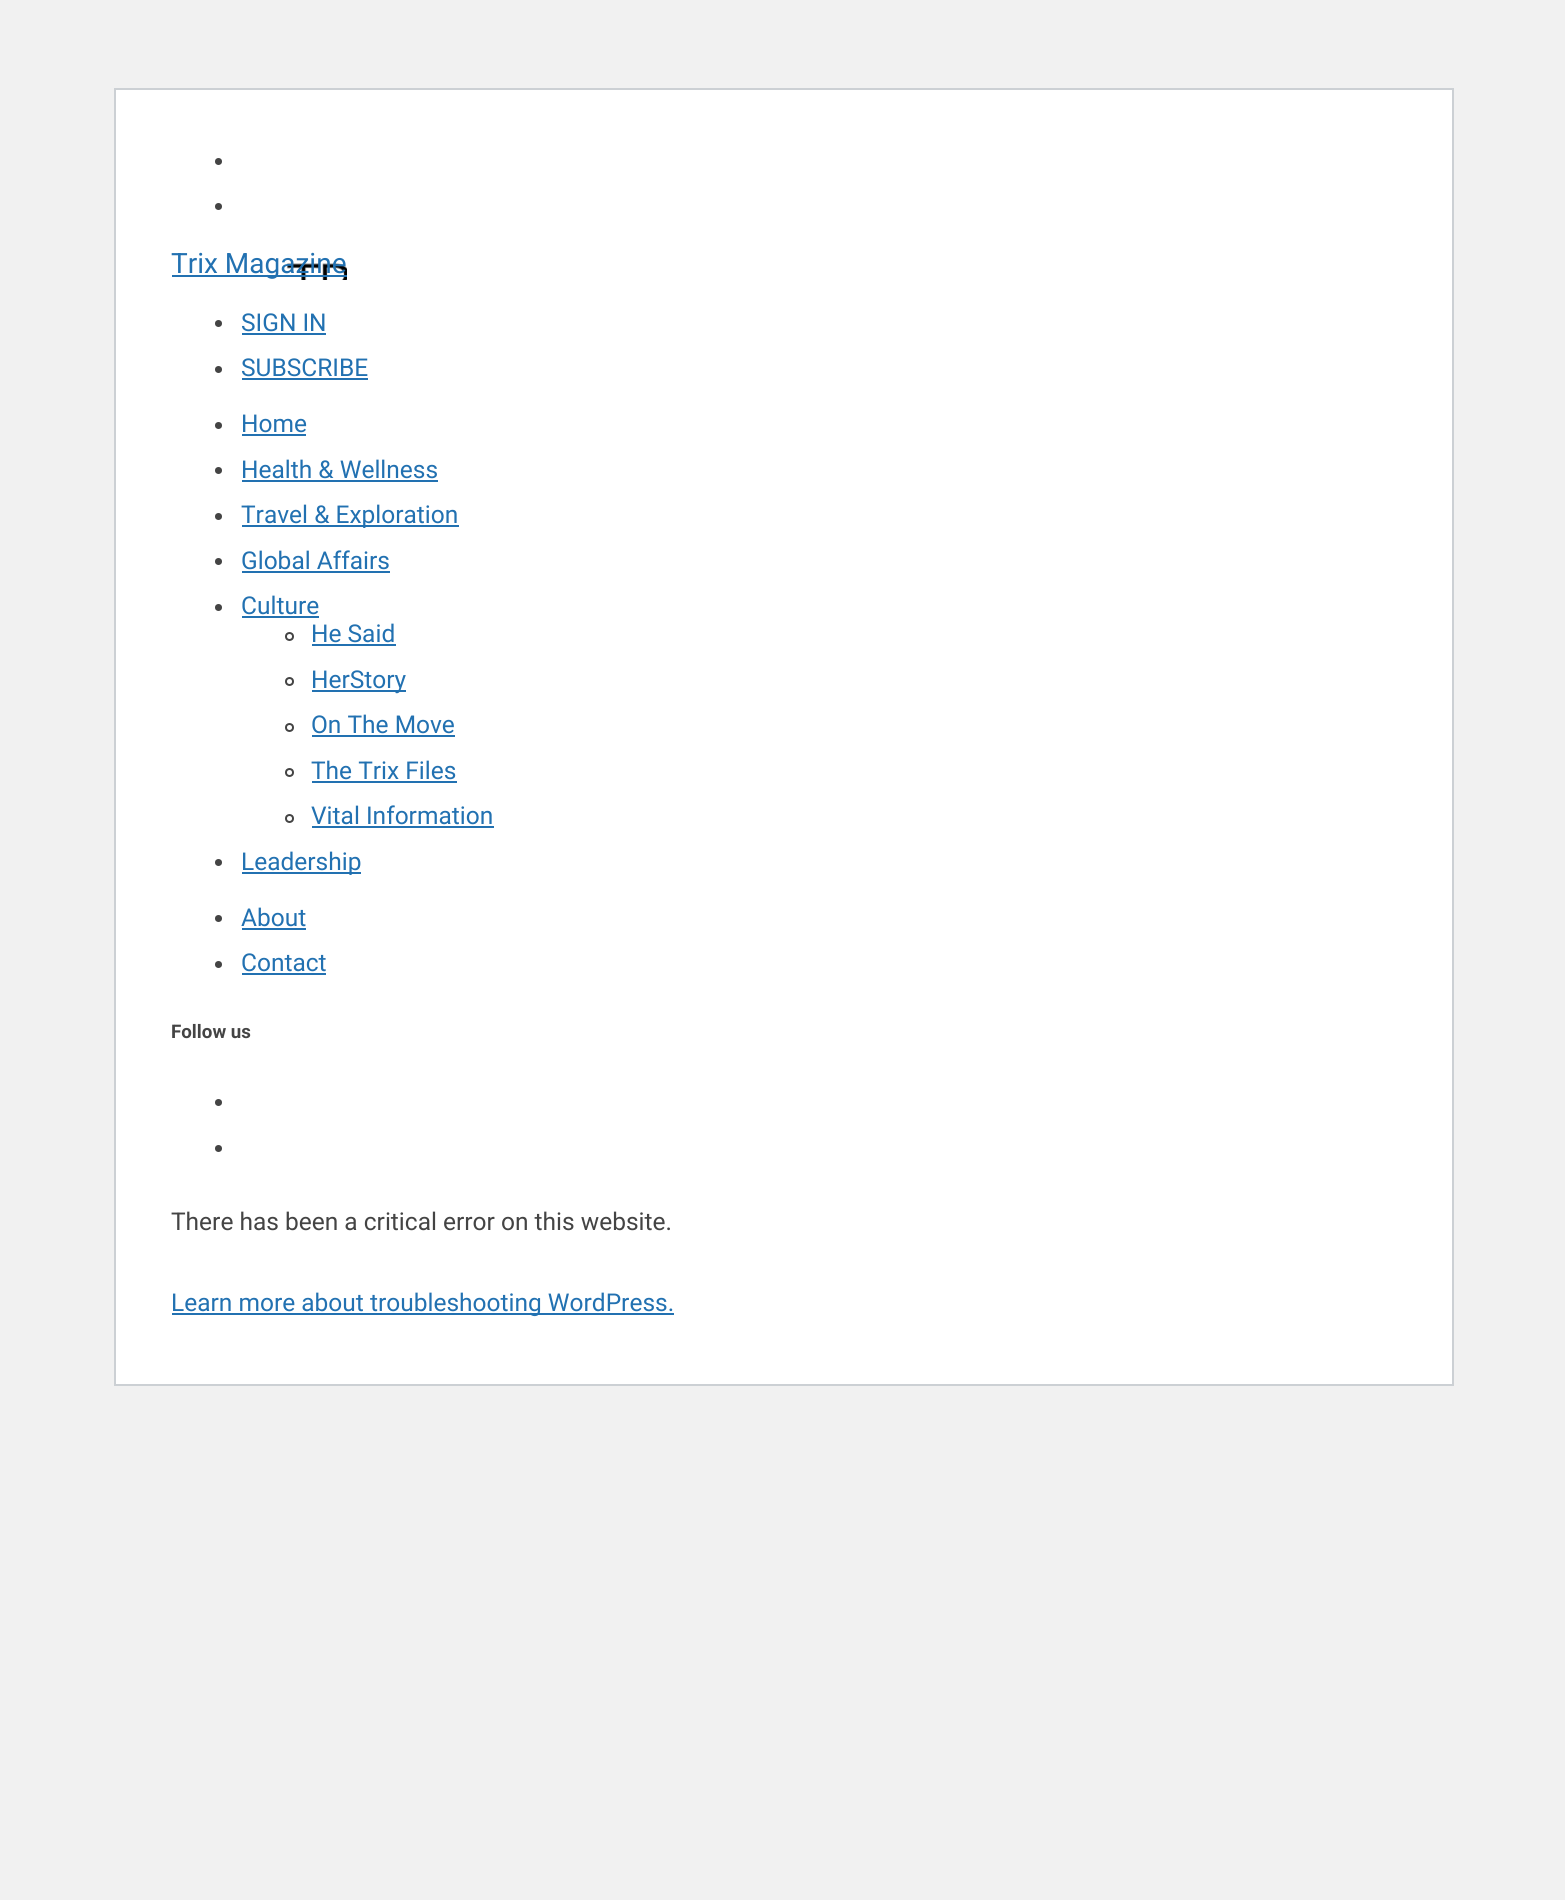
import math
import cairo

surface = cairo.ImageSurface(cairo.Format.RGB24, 1565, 1900)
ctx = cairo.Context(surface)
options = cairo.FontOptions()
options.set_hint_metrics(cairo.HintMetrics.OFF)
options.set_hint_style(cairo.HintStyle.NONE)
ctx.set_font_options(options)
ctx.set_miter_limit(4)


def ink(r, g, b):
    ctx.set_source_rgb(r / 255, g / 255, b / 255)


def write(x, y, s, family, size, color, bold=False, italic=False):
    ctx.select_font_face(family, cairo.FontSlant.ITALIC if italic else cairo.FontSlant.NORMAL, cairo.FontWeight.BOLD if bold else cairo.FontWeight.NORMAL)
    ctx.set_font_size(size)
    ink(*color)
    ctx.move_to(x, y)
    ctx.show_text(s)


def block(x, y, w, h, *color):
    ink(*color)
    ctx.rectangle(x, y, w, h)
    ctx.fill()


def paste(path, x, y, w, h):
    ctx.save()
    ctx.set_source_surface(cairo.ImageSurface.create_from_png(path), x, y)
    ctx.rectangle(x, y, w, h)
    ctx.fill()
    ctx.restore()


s1 = dict(family="Roboto", size=28, color=(34, 113, 177))
s2 = dict(family="Roboto", size=24.5, color=(34, 113, 177))
s3 = dict(family="Roboto", size=18.75, color=(68, 68, 68), bold=True)
s4 = dict(family="Roboto", size=24.5, color=(68, 68, 68))

ink(241, 241, 241)
ctx.paint()
ink(255, 255, 255)
ctx.rectangle(115, 89, 1338, 1296)
ctx.fill_preserve()
ink(204, 208, 212)
ctx.stroke()
ink(68, 68, 68)
ctx.arc(218.5, 161.5, 3.5, 0, 2 * math.pi)
ctx.fill()
ctx.arc(218.5, 206.5, 3.5, 0, 2 * math.pi)
ctx.fill()
paste("pic1.png", 286, 263, 61, 17)
block(172, 275, 175, 2, 34, 113, 177)
write(171, 273, "Trix Magazine", **s1)
ink(68, 68, 68)
ctx.new_path()
ctx.arc(218.5, 323.5, 3.5, 0, 2 * math.pi)
ctx.fill()
write(241, 331, "SIGN IN", **s2)
block(242, 333, 84, 2, 34, 113, 177)
ink(68, 68, 68)
ctx.new_path()
ctx.arc(218.5, 369.5, 3.5, 0, 2 * math.pi)
ctx.fill()
write(241, 376, "SUBSCRIBE", **s2)
block(242, 378, 126, 2, 34, 113, 177)
ink(68, 68, 68)
ctx.new_path()
ctx.arc(218.5, 425.5, 3.5, 0, 2 * math.pi)
ctx.fill()
write(241, 432, "Home", **s2)
block(242, 434, 64, 2, 34, 113, 177)
ink(68, 68, 68)
ctx.new_path()
ctx.arc(218.5, 470.5, 3.5, 0, 2 * math.pi)
ctx.fill()
write(241, 478, "Health & Wellness", **s2)
block(242, 480, 196, 2, 34, 113, 177)
ink(68, 68, 68)
ctx.new_path()
ctx.arc(218.5, 516.5, 3.5, 0, 2 * math.pi)
ctx.fill()
block(242, 525, 217, 2, 34, 113, 177)
write(241, 523, "Travel & Exploration", **s2)
ink(68, 68, 68)
ctx.new_path()
ctx.arc(218.5, 561.5, 3.5, 0, 2 * math.pi)
ctx.fill()
write(241, 569, "Global Affairs", **s2)
block(242, 571, 148, 2, 34, 113, 177)
ink(68, 68, 68)
ctx.new_path()
ctx.arc(218.5, 607.5, 3.5, 0, 2 * math.pi)
ctx.fill()
write(241, 614, "Culture", **s2)
block(242, 616, 77, 2, 34, 113, 177)
ctx.new_path()
ctx.arc(289.5, 636.5, 3.5, 0, 2 * math.pi)
ink(68, 68, 68)
ctx.stroke()
write(311, 642, "He Said", **s2)
block(312, 644, 84, 2, 34, 113, 177)
ctx.new_path()
ctx.arc(289.5, 681.5, 3.5, 0, 2 * math.pi)
ink(68, 68, 68)
ctx.stroke()
block(312, 690, 94, 2, 34, 113, 177)
write(311, 688, "HerStory", **s2)
ctx.new_path()
ctx.arc(289.5, 727.5, 3.5, 0, 2 * math.pi)
ink(68, 68, 68)
ctx.stroke()
write(311, 733, "On The Move", **s2)
block(312, 735, 143, 2, 34, 113, 177)
ctx.new_path()
ctx.arc(289.5, 772.5, 3.5, 0, 2 * math.pi)
ink(68, 68, 68)
ctx.stroke()
write(311, 779, "The Trix Files", **s2)
block(312, 781, 145, 2, 34, 113, 177)
ctx.new_path()
ctx.arc(289.5, 818.5, 3.5, 0, 2 * math.pi)
ink(68, 68, 68)
ctx.stroke()
write(311, 824, "Vital Information", **s2)
block(312, 826, 182, 2, 34, 113, 177)
ink(68, 68, 68)
ctx.new_path()
ctx.arc(218.5, 862.5, 3.5, 0, 2 * math.pi)
ctx.fill()
block(242, 872, 119, 2, 34, 113, 177)
write(241, 870, "Leadership", **s2)
ink(68, 68, 68)
ctx.new_path()
ctx.arc(218.5, 918.5, 3.5, 0, 2 * math.pi)
ctx.fill()
write(241, 926, "About", **s2)
block(242, 928, 64, 2, 34, 113, 177)
ink(68, 68, 68)
ctx.new_path()
ctx.arc(218.5, 964.5, 3.5, 0, 2 * math.pi)
ctx.fill()
write(241, 971, "Contact", **s2)
block(242, 973, 84, 2, 34, 113, 177)
write(171, 1038, "Follow us", **s3)
ctx.new_path()
ctx.arc(218.5, 1102.5, 3.5, 0, 2 * math.pi)
ctx.fill()
ctx.arc(218.5, 1148.5, 3.5, 0, 2 * math.pi)
ctx.fill()
write(171, 1230, "There has been a critical error on this website.", **s4)
block(172, 1313, 502, 2, 34, 113, 177)
write(171, 1311, "Learn more about troubleshooting WordPress.", **s2)
surface.write_to_png("screenshot.png")
